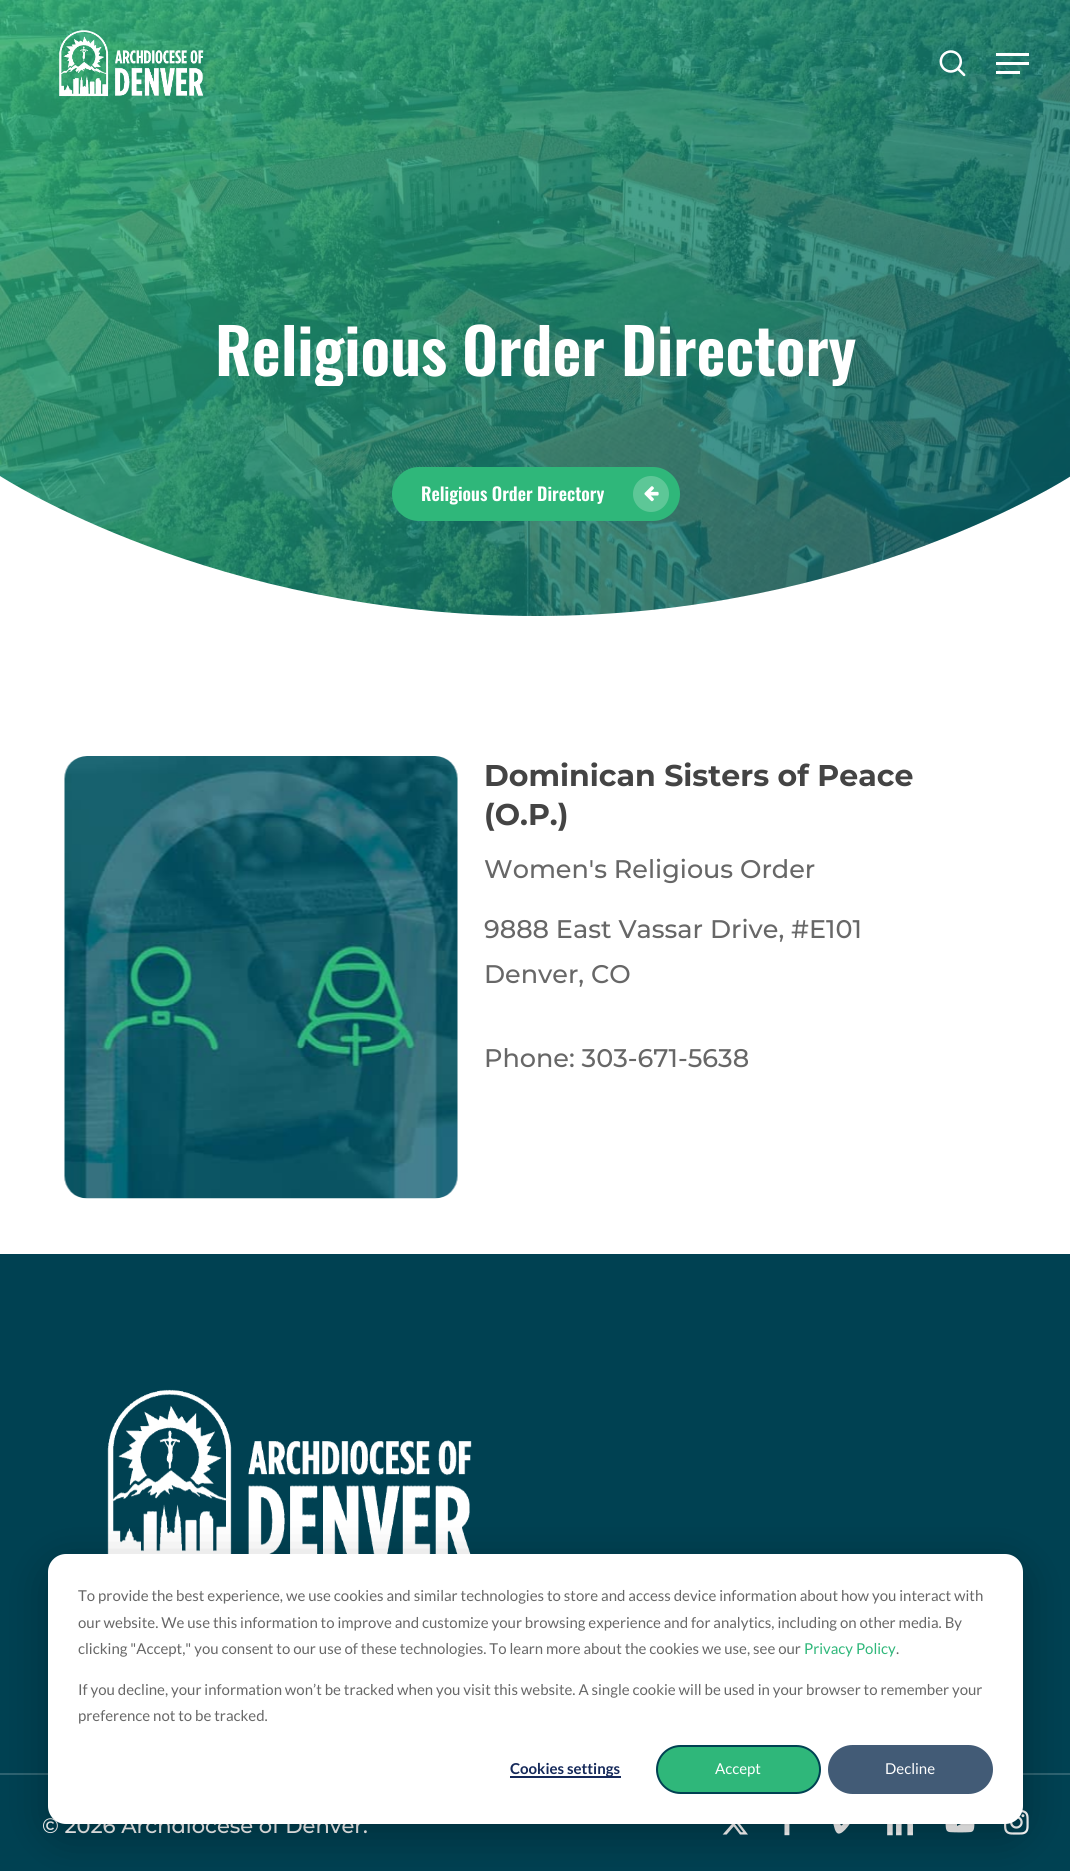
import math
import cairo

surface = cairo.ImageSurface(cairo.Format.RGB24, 1070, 1871)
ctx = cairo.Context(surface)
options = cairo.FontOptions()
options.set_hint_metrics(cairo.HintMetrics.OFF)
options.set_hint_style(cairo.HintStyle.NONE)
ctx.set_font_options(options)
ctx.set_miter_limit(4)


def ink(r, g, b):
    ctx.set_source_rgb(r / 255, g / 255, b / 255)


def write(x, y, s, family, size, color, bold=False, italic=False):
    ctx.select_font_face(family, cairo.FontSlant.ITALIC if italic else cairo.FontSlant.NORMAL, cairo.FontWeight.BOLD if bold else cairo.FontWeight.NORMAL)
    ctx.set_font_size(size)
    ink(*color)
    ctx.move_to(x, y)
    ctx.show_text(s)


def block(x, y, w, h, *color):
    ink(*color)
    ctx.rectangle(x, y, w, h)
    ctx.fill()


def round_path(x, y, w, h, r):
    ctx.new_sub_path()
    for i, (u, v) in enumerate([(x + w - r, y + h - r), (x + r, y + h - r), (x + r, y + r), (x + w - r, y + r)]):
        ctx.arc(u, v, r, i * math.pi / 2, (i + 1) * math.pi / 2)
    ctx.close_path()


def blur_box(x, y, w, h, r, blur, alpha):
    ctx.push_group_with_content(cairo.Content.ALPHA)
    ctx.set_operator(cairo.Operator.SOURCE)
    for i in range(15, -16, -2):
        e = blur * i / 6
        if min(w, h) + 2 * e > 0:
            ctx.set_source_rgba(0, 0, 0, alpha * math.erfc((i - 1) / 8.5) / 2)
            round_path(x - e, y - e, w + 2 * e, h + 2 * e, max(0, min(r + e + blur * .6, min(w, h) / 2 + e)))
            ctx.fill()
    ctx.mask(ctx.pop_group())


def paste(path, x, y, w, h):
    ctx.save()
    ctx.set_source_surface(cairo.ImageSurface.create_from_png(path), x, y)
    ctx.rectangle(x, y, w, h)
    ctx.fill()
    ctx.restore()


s1 = dict(family="Oswald SemiBold", size=63, color=(255, 255, 255))
s2 = dict(family="Oswald SemiBold", size=18, color=(255, 255, 255))
s3 = dict(family="Montserrat", size=30, color=(68, 68, 68), bold=True)
s4 = dict(family="Montserrat Medium", size=25.5, color=(103, 103, 103))
s5 = dict(family="Montserrat Medium", size=21, color=(255, 255, 255))
s6 = dict(family="Lato", size=15, color=(103, 103, 103))
s7 = dict(family="Lato", size=15, color=(47, 183, 122))
s8 = dict(family="Lato", size=15, color=(21, 41, 90), bold=True)
s9 = dict(family="Lato", size=15, color=(255, 255, 255))

ink(255, 255, 255)
ctx.paint()
paste("pic3.png", 0, 0, 1070, 616)
paste("pic1.png", 59, 30, 145, 67)
paste("pic2.png", 939, 50, 27, 27)
block(996, 53, 33, 3, 255, 255, 255)
block(996, 71, 24, 3, 255, 255, 255)
block(996, 62, 33, 3, 255, 255, 255)
ctx.save()
ctx.rectangle(215, 311, 232, 75)
ctx.clip()
write(215, 376, "Religious", **s1)
ctx.restore()
write(462, 376, "Order", **s1)
ctx.save()
ctx.rectangle(621, 311, 236, 75)
ctx.clip()
write(621, 376, "Directory", **s1)
ctx.restore()
ctx.save()
ctx.rectangle(0, 476, 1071, 282)
ctx.clip()
ctx.new_path()
ctx.move_to(0, 476)
ctx.curve_to(0, 476, 214, 616, 536, 616)
ctx.curve_to(857, 616, 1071, 476, 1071, 476)
ctx.line_to(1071, 760)
ctx.line_to(0, 760)
ctx.line_to(0, 478)
ctx.close_path()
ctx.fill()
ctx.restore()
ink(47, 183, 122)
round_path(392, 467, 288, 54, 27)
ctx.fill()
write(421, 501, "Religious Order Directory", **s2)
ink(93, 199, 151)
ctx.new_path()
ctx.arc(651, 494, 18, 0, 2 * math.pi)
ctx.fill()
paste("pic4.png", 644, 486, 15, 16)
paste("pic5.png", 64, 756, 394, 443)
write(484, 786, "Dominican Sisters of Peace", **s3)
write(484, 825, "(O.P.)", **s3)
write(484, 878, "Women's Religious Order", **s4)
write(484, 938, "9888 East Vassar Drive, #E101", **s4)
write(484, 983, "Denver, CO", **s4)
write(484, 1067, "Phone: 303-671-5638", **s4)
block(0, 1254, 1070, 617, 0, 65, 82)
paste("pic6.png", 107, 1389, 365, 165)
block(0, 1773, 1070, 2, 46, 99, 113)
write(42, 1833, "© 2026 Archdiocese of Denver.", **s5)
paste("pic7.png", 722, 1824, 26, 11)
paste("pic8.png", 784, 1824, 6, 12)
paste("pic9.png", 833, 1824, 17, 10)
paste("pic10.png", 887, 1824, 26, 12)
paste("pic11.png", 945, 1824, 30, 9)
paste("pic12.png", 1004, 1810, 25, 25)
ink(0, 0, 0)
blur_box(48, 1566, 975, 270, 18, 21, 0.28)
ink(255, 255, 255)
round_path(48, 1554, 975, 270, 18)
ctx.fill()
write(78, 1601, "To provide the best experience, we use cookies and similar technologies to store and access device information about how you interact with", **s6)
write(78, 1628, "our website. We use this information to improve and customize your browsing experience and for analytics, including on other media. By", **s6)
write(78, 1654, "clicking \"Accept,\" you consent to our use of these technologies. To learn more about the cookies we use, see our", **s6)
write(804, 1654, "Privacy Policy", **s7)
write(896, 1654, ".", **s6)
write(78, 1695, "If you decline, your information won’t be tracked when you visit this website. A single cookie will be used in your browser to remember your", **s6)
write(78, 1721, "preference not to be tracked.", **s6)
block(510, 1776, 111, 2, 21, 41, 90)
write(510, 1774, "Cookies settings", **s8)
ink(47, 183, 122)
round_path(657, 1746, 163, 47, 23.5)
ctx.fill_preserve()
ink(0, 65, 82)
ctx.stroke()
write(715, 1774, "Accept", **s9)
ink(66, 91, 118)
round_path(829, 1746, 163, 47, 23.5)
ctx.fill_preserve()
ctx.stroke()
write(885, 1774, "Decline", **s9)
surface.write_to_png("screenshot.png")
